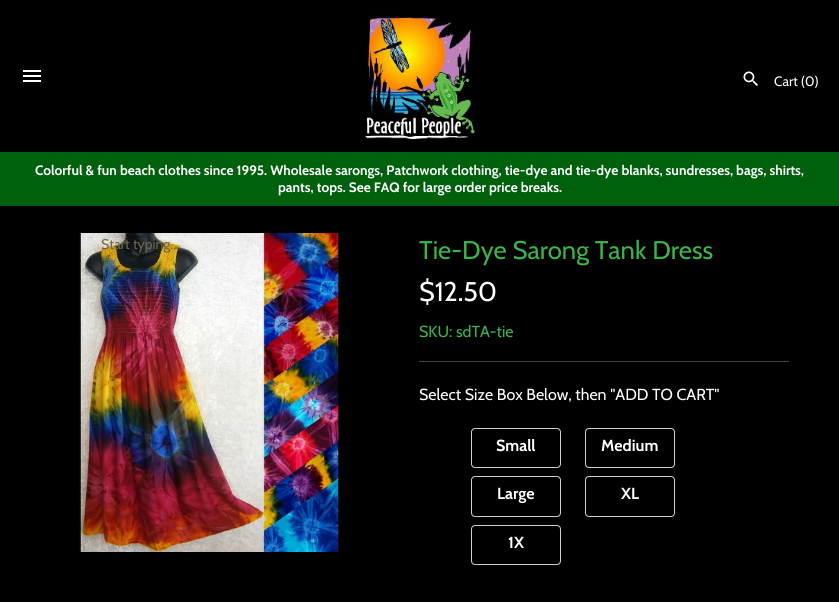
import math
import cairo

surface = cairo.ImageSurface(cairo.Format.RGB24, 839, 602)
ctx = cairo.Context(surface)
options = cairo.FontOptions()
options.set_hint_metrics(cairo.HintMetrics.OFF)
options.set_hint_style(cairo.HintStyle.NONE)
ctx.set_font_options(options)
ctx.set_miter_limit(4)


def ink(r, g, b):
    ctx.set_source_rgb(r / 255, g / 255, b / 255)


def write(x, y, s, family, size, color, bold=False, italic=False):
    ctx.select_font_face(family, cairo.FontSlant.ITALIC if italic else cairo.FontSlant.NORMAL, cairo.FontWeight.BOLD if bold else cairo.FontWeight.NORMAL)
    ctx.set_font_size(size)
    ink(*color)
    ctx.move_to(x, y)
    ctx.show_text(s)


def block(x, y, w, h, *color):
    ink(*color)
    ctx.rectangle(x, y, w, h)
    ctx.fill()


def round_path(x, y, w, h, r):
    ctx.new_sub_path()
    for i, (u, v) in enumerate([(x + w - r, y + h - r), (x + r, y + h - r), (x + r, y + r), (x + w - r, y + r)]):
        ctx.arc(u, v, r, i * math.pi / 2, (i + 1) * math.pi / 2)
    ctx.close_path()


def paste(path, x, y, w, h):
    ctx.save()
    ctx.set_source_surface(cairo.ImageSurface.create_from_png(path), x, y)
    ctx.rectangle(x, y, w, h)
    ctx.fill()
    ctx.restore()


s1 = dict(family="Cabin", size=13.6, color=(255, 255, 255))
s2 = dict(family="Cabin", size=13.6, color=(255, 255, 255), bold=True)
s3 = dict(family="Cabin", size=14, color=(113, 104, 70))
s4 = dict(family="Cabin", size=25.6, color=(58, 181, 74))
s5 = dict(family="Cabin", size=27, color=(255, 255, 255))
s6 = dict(family="Cabin", size=16, color=(58, 181, 74))
s7 = dict(family="Cabin", size=16, color=(255, 255, 255))
s8 = dict(family="Cabin", size=16, color=(255, 255, 255), bold=True)

ink(0, 0, 0)
ctx.paint()
paste("pic1.png", 23, 70, 18, 12)
paste("pic2.png", 365, 15, 110, 124)
paste("pic3.png", 743, 71, 15, 15)
write(774, 86, "Cart (0)", **s1)
block(0, 152, 839, 54, 0, 97, 13)
write(35, 175, "Colorful & fun beach clothes since 1995. Wholesale sarongs, Patchwork clothing, tie-dye and tie-dye blanks, sundresses, bags, shirts,", **s2)
write(278, 192, "pants, tops. See FAQ for large order price breaks.", **s2)
paste("pic4.png", 79, 233, 261, 319)
write(101, 249, "Start typing...", **s3)
write(419, 259, "Tie-Dye Sarong Tank Dress", **s4)
write(419, 301, "$12.50", **s5)
write(419, 337, "SKU: sdTA-tie", **s6)
block(419, 361, 370, 1, 61, 66, 70)
write(419, 400, "Select Size Box Below, then \"ADD TO CART\"", **s7)
round_path(471.5, 428.5, 89, 39, 3.5)
ink(208, 208, 208)
ctx.set_line_width(1)
ctx.stroke()
write(496, 451, "Small", **s8)
round_path(585.5, 428.5, 89, 39, 3.5)
ink(208, 208, 208)
ctx.stroke()
write(601, 451, "Medium", **s8)
round_path(471.5, 476.5, 89, 40, 3.5)
ink(208, 208, 208)
ctx.stroke()
write(497, 499, "Large", **s8)
round_path(585.5, 476.5, 89, 40, 3.5)
ink(208, 208, 208)
ctx.stroke()
write(621, 499, "XL", **s8)
round_path(471.5, 525.5, 89, 39, 3.5)
ink(208, 208, 208)
ctx.stroke()
write(508, 548, "1X", **s8)
surface.write_to_png("screenshot.png")
